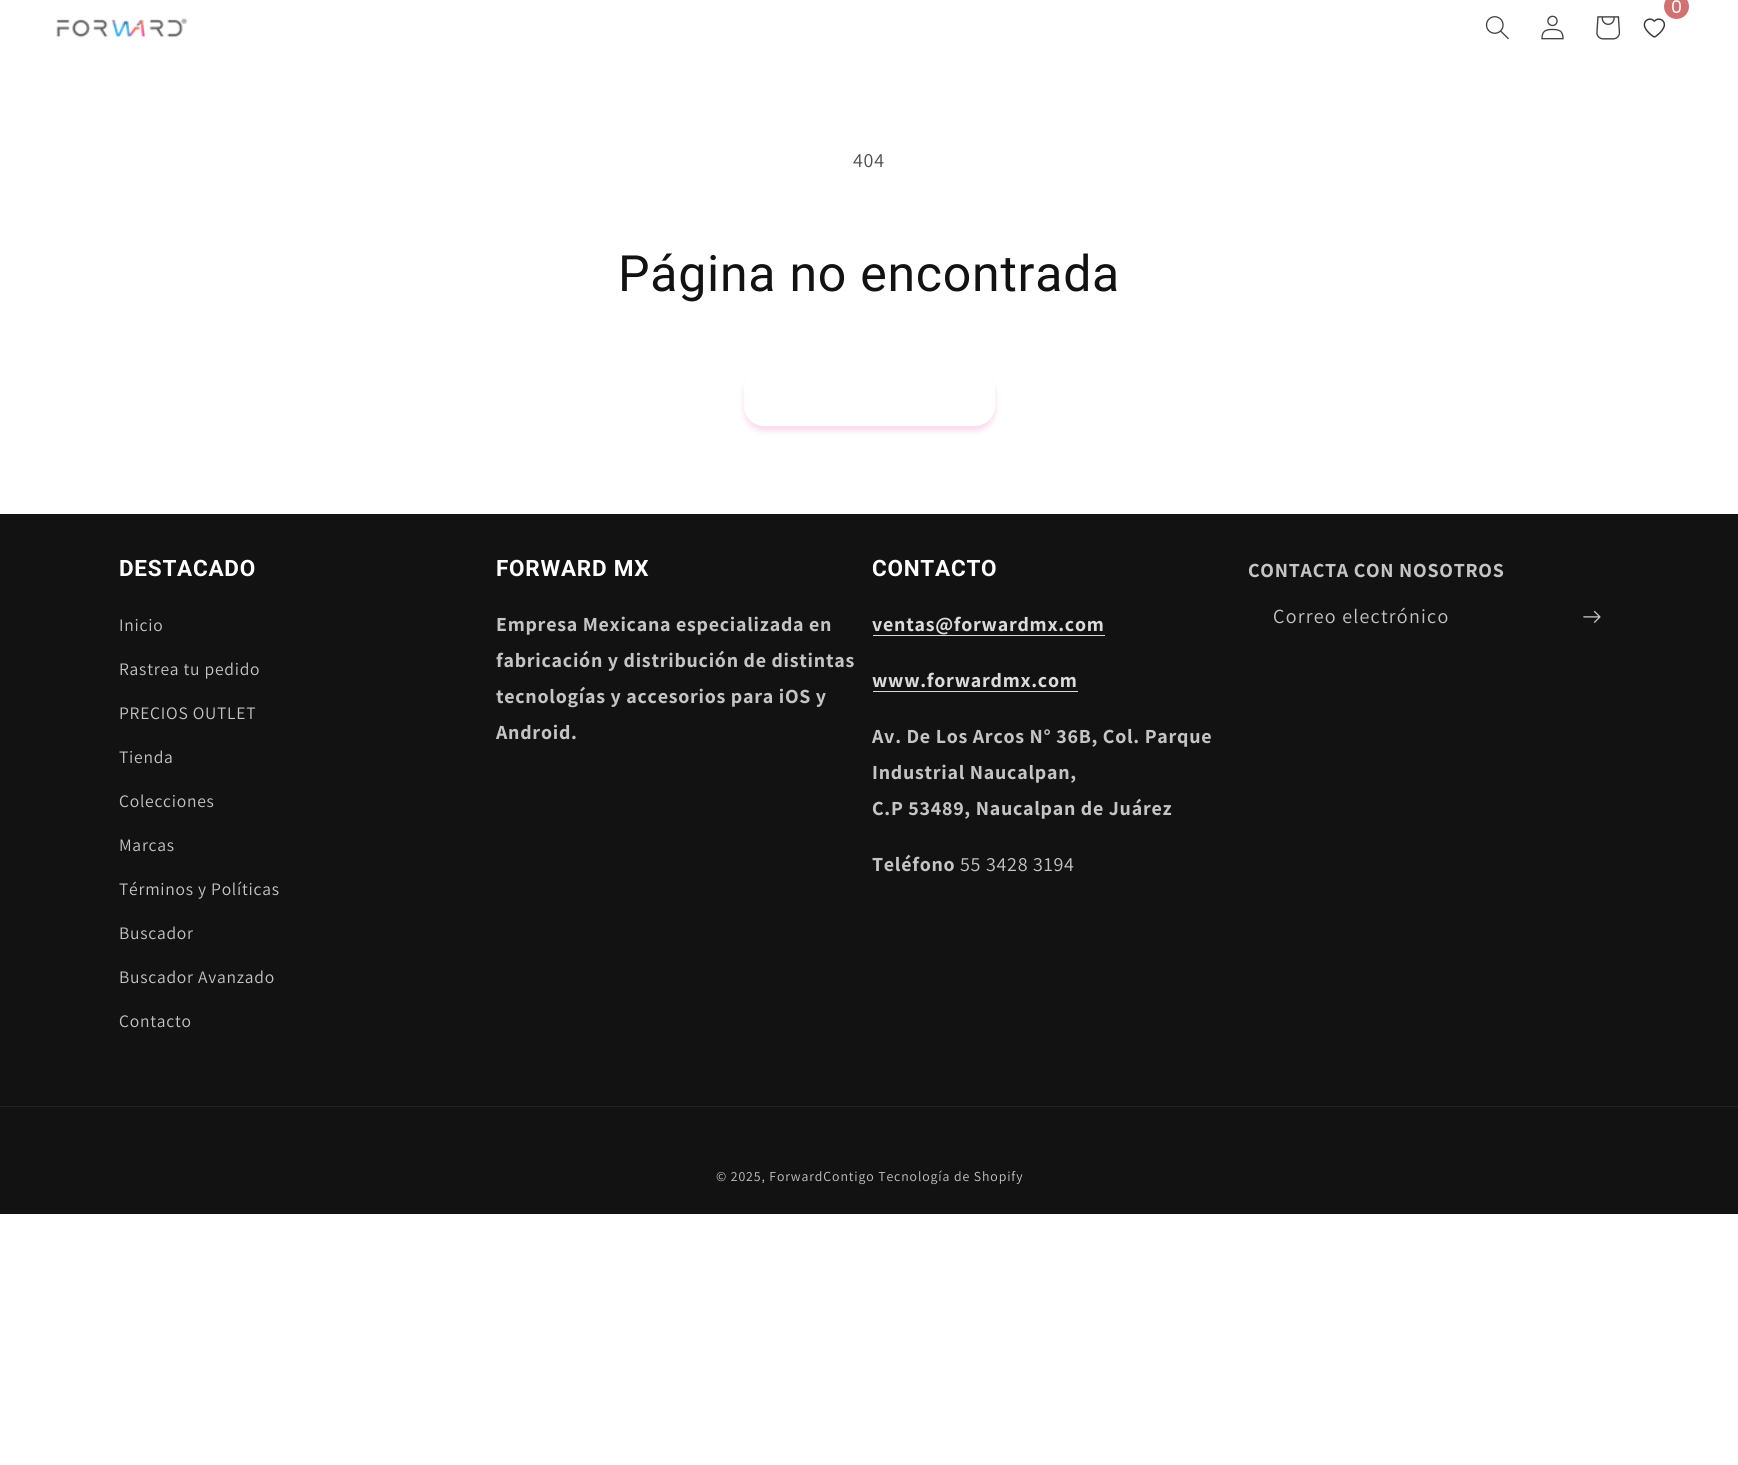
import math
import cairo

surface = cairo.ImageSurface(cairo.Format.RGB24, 1738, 1465)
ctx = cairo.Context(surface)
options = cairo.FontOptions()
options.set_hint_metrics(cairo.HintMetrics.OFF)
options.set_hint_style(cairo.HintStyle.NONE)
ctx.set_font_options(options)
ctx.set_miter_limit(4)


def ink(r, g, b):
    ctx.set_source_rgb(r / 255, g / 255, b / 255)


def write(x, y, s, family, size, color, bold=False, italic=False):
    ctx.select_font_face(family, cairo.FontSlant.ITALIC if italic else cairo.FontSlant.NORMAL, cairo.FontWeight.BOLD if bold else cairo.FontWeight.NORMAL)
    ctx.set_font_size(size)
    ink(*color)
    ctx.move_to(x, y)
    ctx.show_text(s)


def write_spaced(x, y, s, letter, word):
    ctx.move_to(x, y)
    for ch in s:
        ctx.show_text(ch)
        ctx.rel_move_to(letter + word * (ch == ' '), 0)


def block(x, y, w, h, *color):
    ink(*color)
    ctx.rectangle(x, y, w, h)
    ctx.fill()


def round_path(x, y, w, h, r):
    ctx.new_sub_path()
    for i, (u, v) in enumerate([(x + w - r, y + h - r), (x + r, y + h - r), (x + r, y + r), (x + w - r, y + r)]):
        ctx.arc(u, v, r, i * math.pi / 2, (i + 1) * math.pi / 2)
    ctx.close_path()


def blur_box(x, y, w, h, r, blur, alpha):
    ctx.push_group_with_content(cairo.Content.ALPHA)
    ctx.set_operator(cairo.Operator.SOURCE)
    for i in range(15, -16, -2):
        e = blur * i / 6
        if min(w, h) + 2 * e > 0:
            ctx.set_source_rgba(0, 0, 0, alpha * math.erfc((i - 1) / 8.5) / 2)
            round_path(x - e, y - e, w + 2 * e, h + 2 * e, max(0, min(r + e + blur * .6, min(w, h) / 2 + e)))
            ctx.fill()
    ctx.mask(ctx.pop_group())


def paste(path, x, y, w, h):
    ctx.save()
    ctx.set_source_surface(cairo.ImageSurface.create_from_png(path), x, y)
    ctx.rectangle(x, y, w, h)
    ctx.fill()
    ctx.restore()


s1 = dict(family="Poppins", size=17.5, color=(255, 255, 255))

ink(255, 255, 255)
ctx.paint()
paste("pic1.png", 1643, 18, 23, 20)
ink(210, 113, 113)
ctx.arc(1676.5, 6.5, 12.5, 0, 2 * math.pi)
ctx.fill()
write(1671, 13, "0", **s1)
paste("pic2.png", 1485, 16, 24, 24)
paste("pic3.png", 1541, 15, 23, 25)
paste("pic4.png", 1596, 16, 25, 24)
paste("pic5.png", 56, 18, 132, 20)
ctx.select_font_face("Assistant")
ctx.set_font_size(20)
ink(77, 77, 77)
write_spaced(853, 167, "404", 0.75, 0)
ctx.select_font_face("Roboto")
ctx.set_font_size(50)
ink(18, 18, 18)
write_spaced(618, 291, "Página no encontrada", 0.75, 0)
ink(218, 0, 128)
blur_box(744, 375, 251, 56, 20, 3, 0.15)
ink(255, 255, 255)
round_path(744, 370, 251, 56, 20)
ctx.fill()
block(0, 514, 1738, 700, 18, 18, 18)
ctx.select_font_face("Roboto", cairo.FontSlant.NORMAL, cairo.FontWeight.BOLD)
ctx.set_font_size(22.5)
ink(255, 255, 255)
write_spaced(119, 576, "DESTACADO", 0.75, 0)
ctx.select_font_face("Assistant")
ctx.set_font_size(17.5)
ink(196, 196, 196)
write_spaced(119, 631, "Inicio", 0.75, 0)
write_spaced(119, 675, "Rastrea tu pedido", 0.75, 0)
write_spaced(119, 719, "PRECIOS OUTLET", 0.75, 0)
write_spaced(119, 763, "Tienda", 0.75, 0)
write_spaced(119, 807, "Colecciones", 0.75, 0)
write_spaced(119, 851, "Marcas", 0.75, 0)
write_spaced(119, 895, "Términos y Políticas", 0.75, 0)
write_spaced(119, 939, "Buscador", 0.75, 0)
write_spaced(119, 983, "Buscador Avanzado", 0.75, 0)
write_spaced(119, 1027, "Contacto", 0.75, 0)
ctx.select_font_face("Roboto", cairo.FontSlant.NORMAL, cairo.FontWeight.BOLD)
ctx.set_font_size(22.5)
ink(255, 255, 255)
write_spaced(496, 576, "FORWARD MX", 0.75, 0)
ctx.select_font_face("Assistant", cairo.FontSlant.NORMAL, cairo.FontWeight.BOLD)
ctx.set_font_size(20)
ink(196, 196, 196)
write_spaced(496, 631, "Empresa Mexicana especializada en", 0.75, 0)
write_spaced(496, 667, "fabricación y distribución de distintas", 0.75, 0)
write_spaced(496, 703, "tecnologías y accesorios para iOS y", 0.75, 0)
write_spaced(496, 739, "Android.", 0.75, 0)
ctx.select_font_face("Roboto", cairo.FontSlant.NORMAL, cairo.FontWeight.BOLD)
ctx.set_font_size(22.5)
ink(255, 255, 255)
write_spaced(872, 576, "CONTACTO", 0.75, 0)
ctx.select_font_face("Assistant", cairo.FontSlant.NORMAL, cairo.FontWeight.BOLD)
ctx.set_font_size(20)
ink(219, 219, 219)
write_spaced(872, 631, "ventas@forwardmx.com", 0.75, 0)
block(873, 635, 232, 1, 219, 219, 219)
write_spaced(872, 687, "www.forwardmx.com", 0.75, 0)
block(873, 691, 205, 1, 219, 219, 219)
ink(196, 196, 196)
write_spaced(872, 743, "Av. De Los Arcos N° 36B, Col. Parque", 0.75, 0)
write_spaced(872, 779, "Industrial Naucalpan,", 0.75, 0)
write_spaced(872, 815, "C.P 53489, Naucalpan de Juárez", 0.75, 0)
write_spaced(872, 871, "Teléfono", 0.75, 0)
ctx.select_font_face("Assistant")
write_spaced(960, 871, "55 3428 3194", 0.75, 0)
ctx.select_font_face("Assistant", cairo.FontSlant.NORMAL, cairo.FontWeight.BOLD)
write_spaced(1248, 577, "CONTACTA CON NOSOTROS", 0.75, 0)
ctx.select_font_face("Assistant")
write_spaced(1273, 623, "Correo electrónico", 1.25, 0)
paste("pic6.png", 1583, 610, 18, 13)
block(0, 1106, 1738, 1, 37, 37, 37)
ctx.set_font_size(13.75)
ink(196, 196, 196)
write_spaced(716, 1181, "© 2025, ForwardContigo Tecnología de Shopify", 0.9, 0)
surface.write_to_png("screenshot.png")
